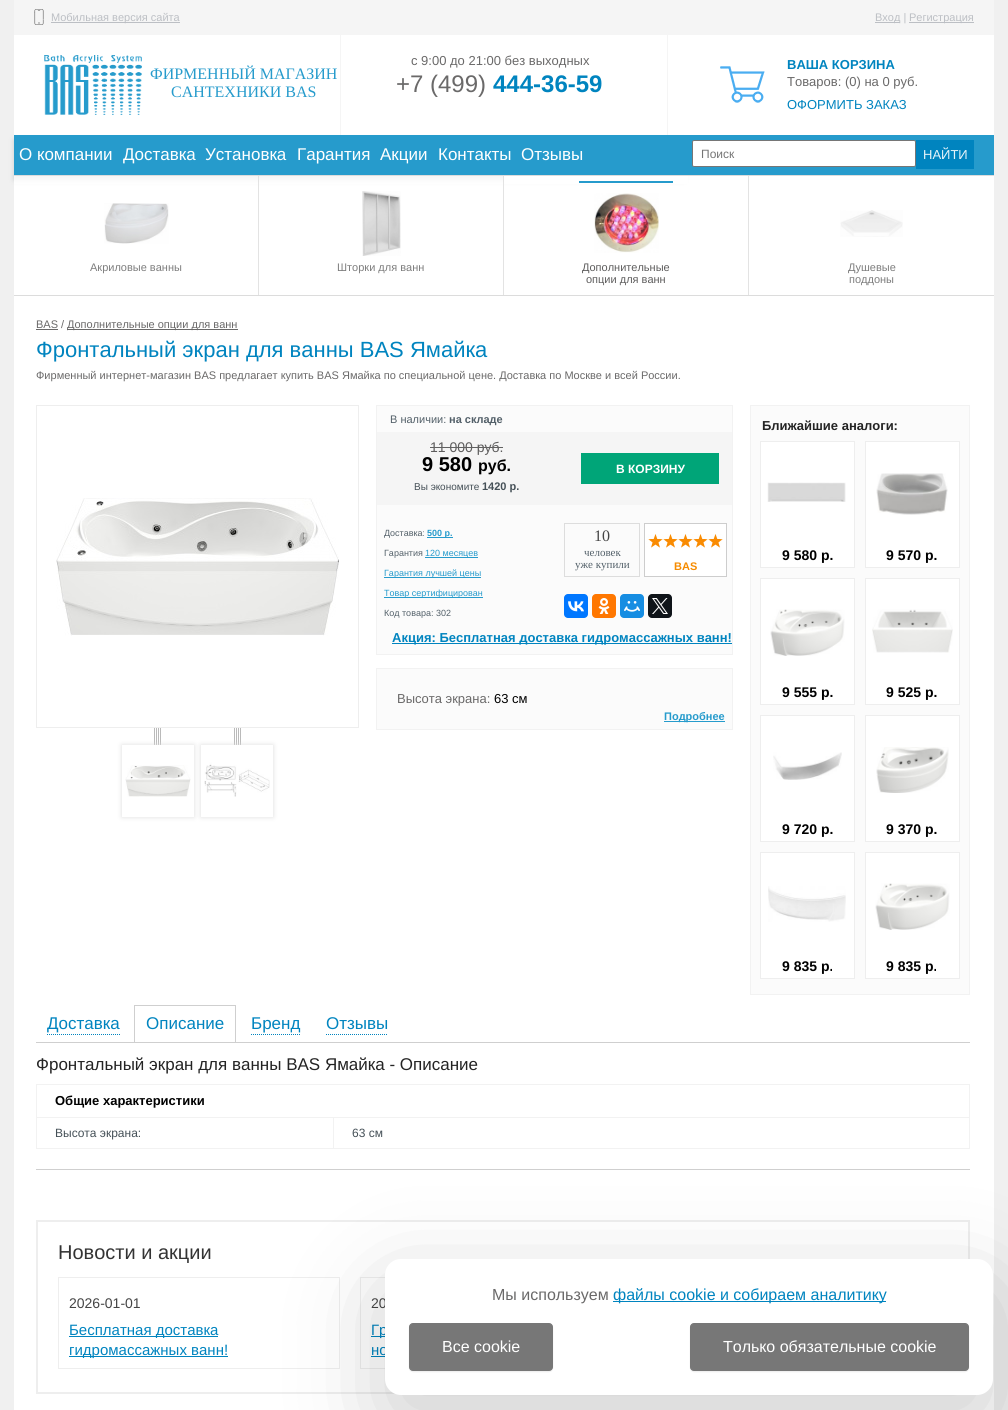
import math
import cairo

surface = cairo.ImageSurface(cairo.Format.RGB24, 1008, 1410)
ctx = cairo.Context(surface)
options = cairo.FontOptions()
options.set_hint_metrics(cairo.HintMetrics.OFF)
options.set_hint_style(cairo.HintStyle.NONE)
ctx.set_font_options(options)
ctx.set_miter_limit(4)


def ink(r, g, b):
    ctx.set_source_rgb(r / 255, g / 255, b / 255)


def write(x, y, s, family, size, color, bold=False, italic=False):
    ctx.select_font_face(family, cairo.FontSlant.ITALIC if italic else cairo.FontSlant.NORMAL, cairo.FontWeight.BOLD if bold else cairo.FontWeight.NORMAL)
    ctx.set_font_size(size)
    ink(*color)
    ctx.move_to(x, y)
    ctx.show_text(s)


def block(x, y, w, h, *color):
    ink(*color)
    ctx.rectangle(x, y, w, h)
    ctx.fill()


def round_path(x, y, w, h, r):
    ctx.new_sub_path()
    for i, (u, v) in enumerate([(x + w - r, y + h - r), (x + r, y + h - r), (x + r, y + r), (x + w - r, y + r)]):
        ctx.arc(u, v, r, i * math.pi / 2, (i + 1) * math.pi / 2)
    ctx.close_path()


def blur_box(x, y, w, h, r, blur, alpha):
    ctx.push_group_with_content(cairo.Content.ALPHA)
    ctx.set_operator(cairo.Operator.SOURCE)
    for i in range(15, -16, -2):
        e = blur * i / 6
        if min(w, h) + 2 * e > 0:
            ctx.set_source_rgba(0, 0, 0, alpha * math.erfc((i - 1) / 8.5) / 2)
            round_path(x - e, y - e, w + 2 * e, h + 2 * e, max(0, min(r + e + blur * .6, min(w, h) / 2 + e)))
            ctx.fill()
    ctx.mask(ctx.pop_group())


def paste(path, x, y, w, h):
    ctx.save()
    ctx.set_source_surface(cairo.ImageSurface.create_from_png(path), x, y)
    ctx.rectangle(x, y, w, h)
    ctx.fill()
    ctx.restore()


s1 = dict(family="Liberation Sans", size=11, color=(188, 191, 196))
s2 = dict(family="Liberation Serif", size=16, color=(38, 155, 204))
s3 = dict(family="Liberation Sans", size=13, color=(106, 105, 105))
s4 = dict(family="Liberation Sans", size=13, color=(0, 132, 191), bold=True)
s5 = dict(family="Liberation Sans", size=13, color=(0, 132, 191))
s6 = dict(family="Liberation Sans", size=24, color=(106, 105, 105))
s7 = dict(family="Liberation Sans", size=24, color=(0, 132, 191), bold=True)
s8 = dict(family="Liberation Sans", size=12, color=(117, 117, 117))
s9 = dict(family="Liberation Sans", size=13, color=(230, 243, 249))
s10 = dict(family="Liberation Sans", size=17, color=(255, 255, 255))
s11 = dict(family="Liberation Sans", size=11, color=(125, 125, 125))
s12 = dict(family="Liberation Sans", size=11, color=(93, 92, 92))
s13 = dict(family="Liberation Sans", size=11, color=(106, 105, 105))
s14 = dict(family="Liberation Sans", size=22, color=(0, 132, 191))
s15 = dict(family="Liberation Sans", size=11, color=(83, 96, 105))
s16 = dict(family="Liberation Sans", size=11, color=(83, 96, 105), bold=True)
s17 = dict(family="Liberation Sans", size=14, color=(93, 92, 92))
s18 = dict(family="Liberation Sans", size=20, color=(0, 0, 0), bold=True)
s19 = dict(family="Liberation Sans", size=16, color=(0, 0, 0), bold=True)
s20 = dict(family="Liberation Sans", size=10, color=(69, 80, 87))
s21 = dict(family="Liberation Sans", size=11, color=(69, 80, 87), bold=True)
s22 = dict(family="Liberation Sans", size=12, color=(255, 255, 255), bold=True)
s23 = dict(family="Liberation Sans", size=9, color=(83, 96, 105))
s24 = dict(family="Liberation Sans", size=9, color=(38, 155, 204), bold=True)
s25 = dict(family="Liberation Sans", size=9, color=(38, 155, 204))
s26 = dict(family="Liberation Serif", size=16, color=(69, 69, 69))
s27 = dict(family="Liberation Serif", size=11, color=(83, 96, 105))
s28 = dict(family="Liberation Sans", size=11, color=(246, 139, 0), bold=True)
s29 = dict(family="Liberation Sans", size=13, color=(0, 0, 0))
s30 = dict(family="Liberation Sans", size=11, color=(38, 155, 204), bold=True)
s31 = dict(family="Liberation Sans", size=13, color=(36, 36, 36), bold=True)
s32 = dict(family="Liberation Sans", size=14, color=(0, 0, 0), bold=True)
s33 = dict(family="Liberation Sans", size=17, color=(0, 132, 191))
s34 = dict(family="Liberation Sans", size=17, color=(36, 36, 36))
s35 = dict(family="Liberation Sans", size=13, color=(0, 0, 0), bold=True)
s36 = dict(family="Liberation Sans", size=12, color=(69, 80, 87))
s37 = dict(family="Liberation Sans", size=20, color=(51, 51, 51))
s38 = dict(family="Liberation Sans", size=14, color=(69, 69, 69))
s39 = dict(family="Liberation Sans", size=15, color=(0, 132, 191))
s40 = dict(family="Liberation Sans", size=16, color=(106, 105, 105))
s41 = dict(family="Liberation Sans", size=16, color=(0, 132, 191))
s42 = dict(family="Liberation Sans", size=16, color=(255, 255, 255))

ink(240, 240, 240)
ctx.paint()
block(14, 35, 980, 1375, 255, 255, 255)
block(14, 0, 980, 35, 245, 245, 245)
paste("pic1.png", 34, 9, 10, 16)
block(51, 22, 129, 1, 188, 191, 196)
write(51, 21, "Мобильная версия сайта", **s1)
block(875, 22, 25, 1, 188, 191, 196)
write(875, 21, "Вход |", **s1)
block(909, 22, 65, 1, 188, 191, 196)
write(909, 21, "Регистрация", **s1)
paste("pic2.png", 44, 55, 98, 60)
write(150, 79, "ФИРМЕННЫЙ МАГАЗИН", **s2)
write(171, 97, "САНТЕХНИКИ BAS", **s2)
ink(204, 206, 207)
blur_box(14, 140, 670, 40, 0, 2.5, 1)
block(340, 35, 1, 100, 245, 245, 245)
write(411, 65, "с 9:00 до 21:00 без выходных", **s3)
block(667, 35, 1, 100, 245, 245, 245)
paste("pic3.png", 720, 66, 45, 37)
write(787, 69, "ВАША КОРЗИНА", **s4)
write(787, 86, "Товаров: (0) на 0 руб.", **s3)
write(787, 109, "ОФОРМИТЬ ЗАКАЗ", **s5)
write(396, 92, "+7 (499)", **s6)
write(493, 92, "444-36-59", **s7)
block(14, 135, 980, 40, 38, 155, 204)
ink(255, 255, 255)
round_path(692.5, 140.5, 223, 26, 1.5)
ctx.fill_preserve()
ink(118, 118, 118)
ctx.set_line_width(1)
ctx.stroke()
write(701, 158, "Поиск", **s8)
block(916, 140, 58, 29, 0, 132, 191)
write(923, 159, "НАЙТИ", **s9)
write(19, 160, "О компании", **s10)
write(123, 160, "Доставка", **s10)
write(205, 160, "Установка", **s10)
write(297, 160, "Гарантия", **s10)
write(380, 160, "Акции", **s10)
write(438, 160, "Контакты", **s10)
write(521, 160, "Отзывы", **s10)
block(14, 175, 980, 1, 220, 220, 220)
block(14, 295, 980, 1, 220, 220, 220)
ctx.set_source_rgba(1, 1, 1, 0.8)
ctx.rectangle(14, 176, 245, 8)
ctx.fill()
ctx.set_source_rgba(0.863, 0.863, 0.863, 0.8)
ctx.rectangle(258, 176, 1, 119)
ctx.fill()
paste("pic4.png", 104, 203, 65, 41)
write(90, 271, "Акриловые ванны", **s11)
ctx.set_source_rgba(1, 1, 1, 0.8)
ctx.rectangle(259, 176, 245, 8)
ctx.fill()
ctx.set_source_rgba(0.863, 0.863, 0.863, 0.8)
ctx.rectangle(503, 176, 1, 119)
ctx.fill()
paste("pic5.png", 362, 191, 39, 65)
write(337, 271, "Шторки для ванн", **s11)
block(504, 176, 184, 8, 255, 255, 255)
block(748, 176, 1, 119, 227, 227, 227)
block(579, 181, 94, 2, 38, 155, 204)
paste("pic6.png", 594, 193, 65, 60)
write(582, 271, "Дополнительные", **s12)
write(586, 283, "опции для ванн", **s12)
paste("pic7.png", 840, 210, 63, 27)
write(848, 271, "Душевые", **s11)
write(849, 283, "поддоны", **s11)
write(36, 328, "BAS /", **s13)
block(36, 329, 22, 1, 106, 105, 105)
block(67, 329, 171, 1, 106, 105, 105)
write(67, 328, "Дополнительные опции для ванн", **s13)
write(36, 357, "Фронтальный экран для ванны BAS Ямайка", **s14)
write(36, 379, "Фирменный интернет-магазин BAS предлагает купить BAS Ямайка по специальной цене. Доставка по Москве и всей России.", **s13)
ctx.rectangle(36.5, 405.5, 322, 322)
ink(238, 238, 238)
ctx.stroke()
paste("pic8.png", 56, 498, 283, 138)
paste("pic9.png", 154, 728, 7, 17)
ctx.save()
ctx.set_fill_rule(cairo.FillRule.EVEN_ODD)
ctx.new_path()
ctx.move_to(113, 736)
ctx.line_to(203, 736)
ctx.line_to(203, 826)
ctx.line_to(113, 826)
ctx.close_path()
ctx.move_to(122, 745)
ctx.line_to(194, 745)
ctx.line_to(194, 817)
ctx.line_to(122, 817)
ctx.close_path()
ctx.clip()
ink(221, 221, 221)
blur_box(122, 745, 72, 72, 0, 2.5, 1)
ctx.restore()
paste("pic10.png", 125, 747, 66, 50)
paste("pic9.png", 234, 728, 7, 17)
ctx.save()
ctx.set_fill_rule(cairo.FillRule.EVEN_ODD)
ctx.new_path()
ctx.move_to(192, 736)
ctx.line_to(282, 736)
ctx.line_to(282, 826)
ctx.line_to(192, 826)
ctx.close_path()
ctx.move_to(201, 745)
ctx.line_to(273, 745)
ctx.line_to(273, 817)
ctx.line_to(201, 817)
ctx.close_path()
ctx.clip()
ink(221, 221, 221)
blur_box(201, 745, 72, 72, 0, 2.5, 1)
ctx.restore()
paste("pic11.png", 204, 747, 66, 50)
ink(251, 251, 251)
ctx.rectangle(376.5, 405.5, 356, 249)
ctx.fill_preserve()
ink(242, 242, 242)
ctx.stroke()
write(390, 423, "В наличии:", **s15)
write(449, 423, "на складе", **s16)
block(377, 432, 355, 73, 245, 245, 245)
write(430, 452, "11 000 руб.", **s17)
block(430, 447, 73, 1, 97, 97, 97)
write(422, 471, "9 580", **s18)
write(478, 471, "руб.", **s19)
write(414, 490, "Вы экономите", **s20)
write(482, 490, "1420 р.", **s21)
block(581, 453, 138, 31, 0, 165, 120)
write(616, 473, "В КОРЗИНУ", **s22)
write(384, 536, "Доставка:", **s23)
block(427, 537, 26, 1, 38, 155, 204)
write(427, 536, "500 р.", **s24)
write(384, 556, "Гарантия", **s23)
block(425, 557, 53, 1, 38, 155, 204)
write(425, 556, "120 месяцев", **s25)
block(384, 577, 97, 1, 38, 155, 204)
write(384, 576, "Гарантия лучшей цены", **s25)
block(384, 597, 99, 1, 38, 155, 204)
write(384, 596, "Товар сертифицирован", **s25)
write(384, 616, "Код товара: 302", **s23)
ctx.rectangle(564.5, 523.5, 75, 53)
ink(221, 221, 221)
ctx.stroke()
write(594, 541, "10", **s26)
write(584, 556, "человек", **s27)
write(575, 568, "уже купили", **s27)
ink(255, 255, 255)
ctx.rectangle(644.5, 523.5, 82, 53)
ctx.fill_preserve()
ink(205, 205, 205)
ctx.stroke()
paste("pic12.png", 646, 534, 77, 16)
write(674, 570, "BAS", **s28)
ink(0, 119, 255)
round_path(564, 594, 24, 24, 4)
ctx.fill()
paste("pic13.png", 568, 601, 16, 11)
ink(255, 119, 0)
round_path(592, 594, 24, 24, 4)
ctx.fill()
paste("pic14.png", 598, 598, 12, 16)
ink(22, 141, 226)
round_path(620, 594, 24, 24, 4)
ctx.fill()
paste("pic15.png", 624, 601, 16, 11)
ink(15, 20, 25)
round_path(648, 594, 24, 24, 4)
ctx.fill()
paste("pic16.png", 652, 598, 16, 16)
block(392, 643, 340, 1, 0, 132, 191)
write(392, 642, "Акция: Бесплатная доставка гидромассажных ванн!", **s4)
ink(251, 251, 251)
ctx.rectangle(376.5, 668.5, 356, 61)
ctx.fill_preserve()
ink(242, 242, 242)
ctx.stroke()
write(397, 703, "Высота экрана:", **s3)
write(494, 703, "63 см", **s29)
block(664, 721, 61, 1, 38, 155, 204)
write(664, 720, "Подробнее", **s30)
ink(251, 251, 251)
ctx.rectangle(750.5, 405.5, 219, 589)
ctx.fill_preserve()
ink(242, 242, 242)
ctx.stroke()
write(762, 430, "Ближайшие аналоги:", **s31)
ink(255, 255, 255)
ctx.rectangle(760.5, 441.5, 94, 126)
ctx.fill_preserve()
ink(238, 238, 238)
ctx.stroke()
paste("pic17.png", 767, 482, 79, 20)
write(782, 560, "9 580 р.", **s32)
ink(255, 255, 255)
ctx.rectangle(865.5, 441.5, 94, 126)
ctx.fill_preserve()
ink(238, 238, 238)
ctx.stroke()
paste("pic18.png", 876, 473, 72, 42)
write(886, 560, "9 570 р.", **s32)
ink(255, 255, 255)
ctx.rectangle(760.5, 578.5, 94, 126)
ctx.fill_preserve()
ink(238, 238, 238)
ctx.stroke()
paste("pic19.png", 770, 609, 75, 47)
write(782, 697, "9 555 р.", **s32)
ink(255, 255, 255)
ctx.rectangle(865.5, 578.5, 94, 126)
ctx.fill_preserve()
ink(238, 238, 238)
ctx.stroke()
paste("pic20.png", 872, 609, 81, 44)
write(886, 697, "9 525 р.", **s32)
ink(255, 255, 255)
ctx.rectangle(760.5, 715.5, 94, 126)
ctx.fill_preserve()
ink(238, 238, 238)
ctx.stroke()
paste("pic21.png", 773, 752, 69, 28)
write(782, 834, "9 720 р.", **s32)
ink(255, 255, 255)
ctx.rectangle(865.5, 715.5, 94, 126)
ctx.fill_preserve()
ink(238, 238, 238)
ctx.stroke()
paste("pic22.png", 876, 747, 73, 46)
write(886, 834, "9 370 р.", **s32)
ink(255, 255, 255)
ctx.rectangle(760.5, 852.5, 94, 126)
ctx.fill_preserve()
ink(238, 238, 238)
ctx.stroke()
paste("pic23.png", 768, 886, 78, 36)
write(782, 971, "9 835 р.", **s32)
ink(255, 255, 255)
ctx.rectangle(865.5, 852.5, 94, 126)
ctx.fill_preserve()
ink(238, 238, 238)
ctx.stroke()
paste("pic24.png", 875, 883, 75, 47)
write(886, 971, "9 835 р.", **s32)
block(36, 1169, 934, 1, 207, 207, 207)
block(36, 1042, 934, 1, 207, 207, 207)
write(47, 1029, "Доставка", **s33)
ctx.new_path()
ctx.move_to(47, 1034.5)
ctx.line_to(120, 1034.5)
ctx.set_dash([1, 1])
ctx.stroke()
block(134, 1005, 102, 1, 207, 207, 207)
block(235, 1005, 1, 37, 207, 207, 207)
block(134, 1005, 1, 37, 207, 207, 207)
write(146, 1029, "Описание", **s33)
write(251, 1029, "Бренд", **s33)
ctx.new_path()
ctx.move_to(251, 1034.5)
ctx.line_to(300, 1034.5)
ctx.stroke()
write(326, 1029, "Отзывы", **s33)
ctx.new_path()
ctx.move_to(326, 1034.5)
ctx.line_to(388, 1034.5)
ctx.stroke()
write(36, 1070, "Фронтальный экран для ванны BAS Ямайка - Описание", **s34)
block(36, 1084, 934, 1, 242, 242, 242)
block(333, 1117, 637, 1, 242, 242, 242)
block(969, 1117, 1, 32, 242, 242, 242)
block(969, 1084, 1, 34, 242, 242, 242)
block(333, 1148, 637, 1, 242, 242, 242)
block(333, 1117, 1, 32, 242, 242, 242)
block(36, 1117, 298, 1, 242, 242, 242)
block(36, 1148, 298, 1, 242, 242, 242)
block(36, 1117, 1, 32, 242, 242, 242)
block(36, 1084, 1, 34, 242, 242, 242)
write(55, 1105, "Общие характеристики", **s35)
write(55, 1137, "Высота экрана:", **s36)
write(352, 1137, "63 см", **s36)
ctx.rectangle(37, 1221, 932, 172)
ink(238, 238, 238)
ctx.set_line_width(2)
ctx.set_dash([])
ctx.stroke()
write(58, 1259, "Новости и акции", **s37)
ctx.rectangle(58.5, 1277.5, 281, 91)
ink(238, 238, 238)
ctx.set_line_width(1)
ctx.stroke()
write(69, 1308, "2026-01-01", **s38)
block(69, 1336, 149, 1, 0, 132, 191)
write(69, 1335, "Бесплатная доставка", **s39)
block(69, 1356, 159, 1, 0, 132, 191)
write(69, 1355, "гидромассажных ванн!", **s39)
ctx.rectangle(360.5, 1277.5, 281, 91)
ink(238, 238, 238)
ctx.stroke()
write(371, 1308, "20", **s38)
block(371, 1336, 14, 1, 0, 132, 191)
write(371, 1335, "Гр", **s39)
write(371, 1355, "но", **s39)
block(371, 1356, 14, 1, 0, 132, 191)
ink(0, 0, 0)
blur_box(377, 1281, 624, 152, 24, 44, 0.17)
ink(255, 255, 255)
round_path(385, 1259, 608, 136, 16)
ctx.fill()
write(492, 1300, "Мы используем", **s40)
block(613, 1301, 273, 1, 0, 132, 191)
write(613, 1300, "файлы cookie и собираем аналитику", **s41)
ink(0, 0, 0)
blur_box(409, 1324, 144, 48, 4, 0.5, 0.07)
ink(119, 119, 119)
round_path(409.5, 1323.5, 143, 47, 3.5)
ctx.fill_preserve()
ctx.stroke()
write(442, 1352, "Все cookie", **s42)
ink(0, 0, 0)
blur_box(690, 1324, 279, 48, 4, 0.5, 0.07)
ink(119, 119, 119)
round_path(690.5, 1323.5, 278, 47, 3.5)
ctx.fill_preserve()
ctx.stroke()
write(723, 1352, "Только обязательные cookie", **s42)
surface.write_to_png("screenshot.png")
